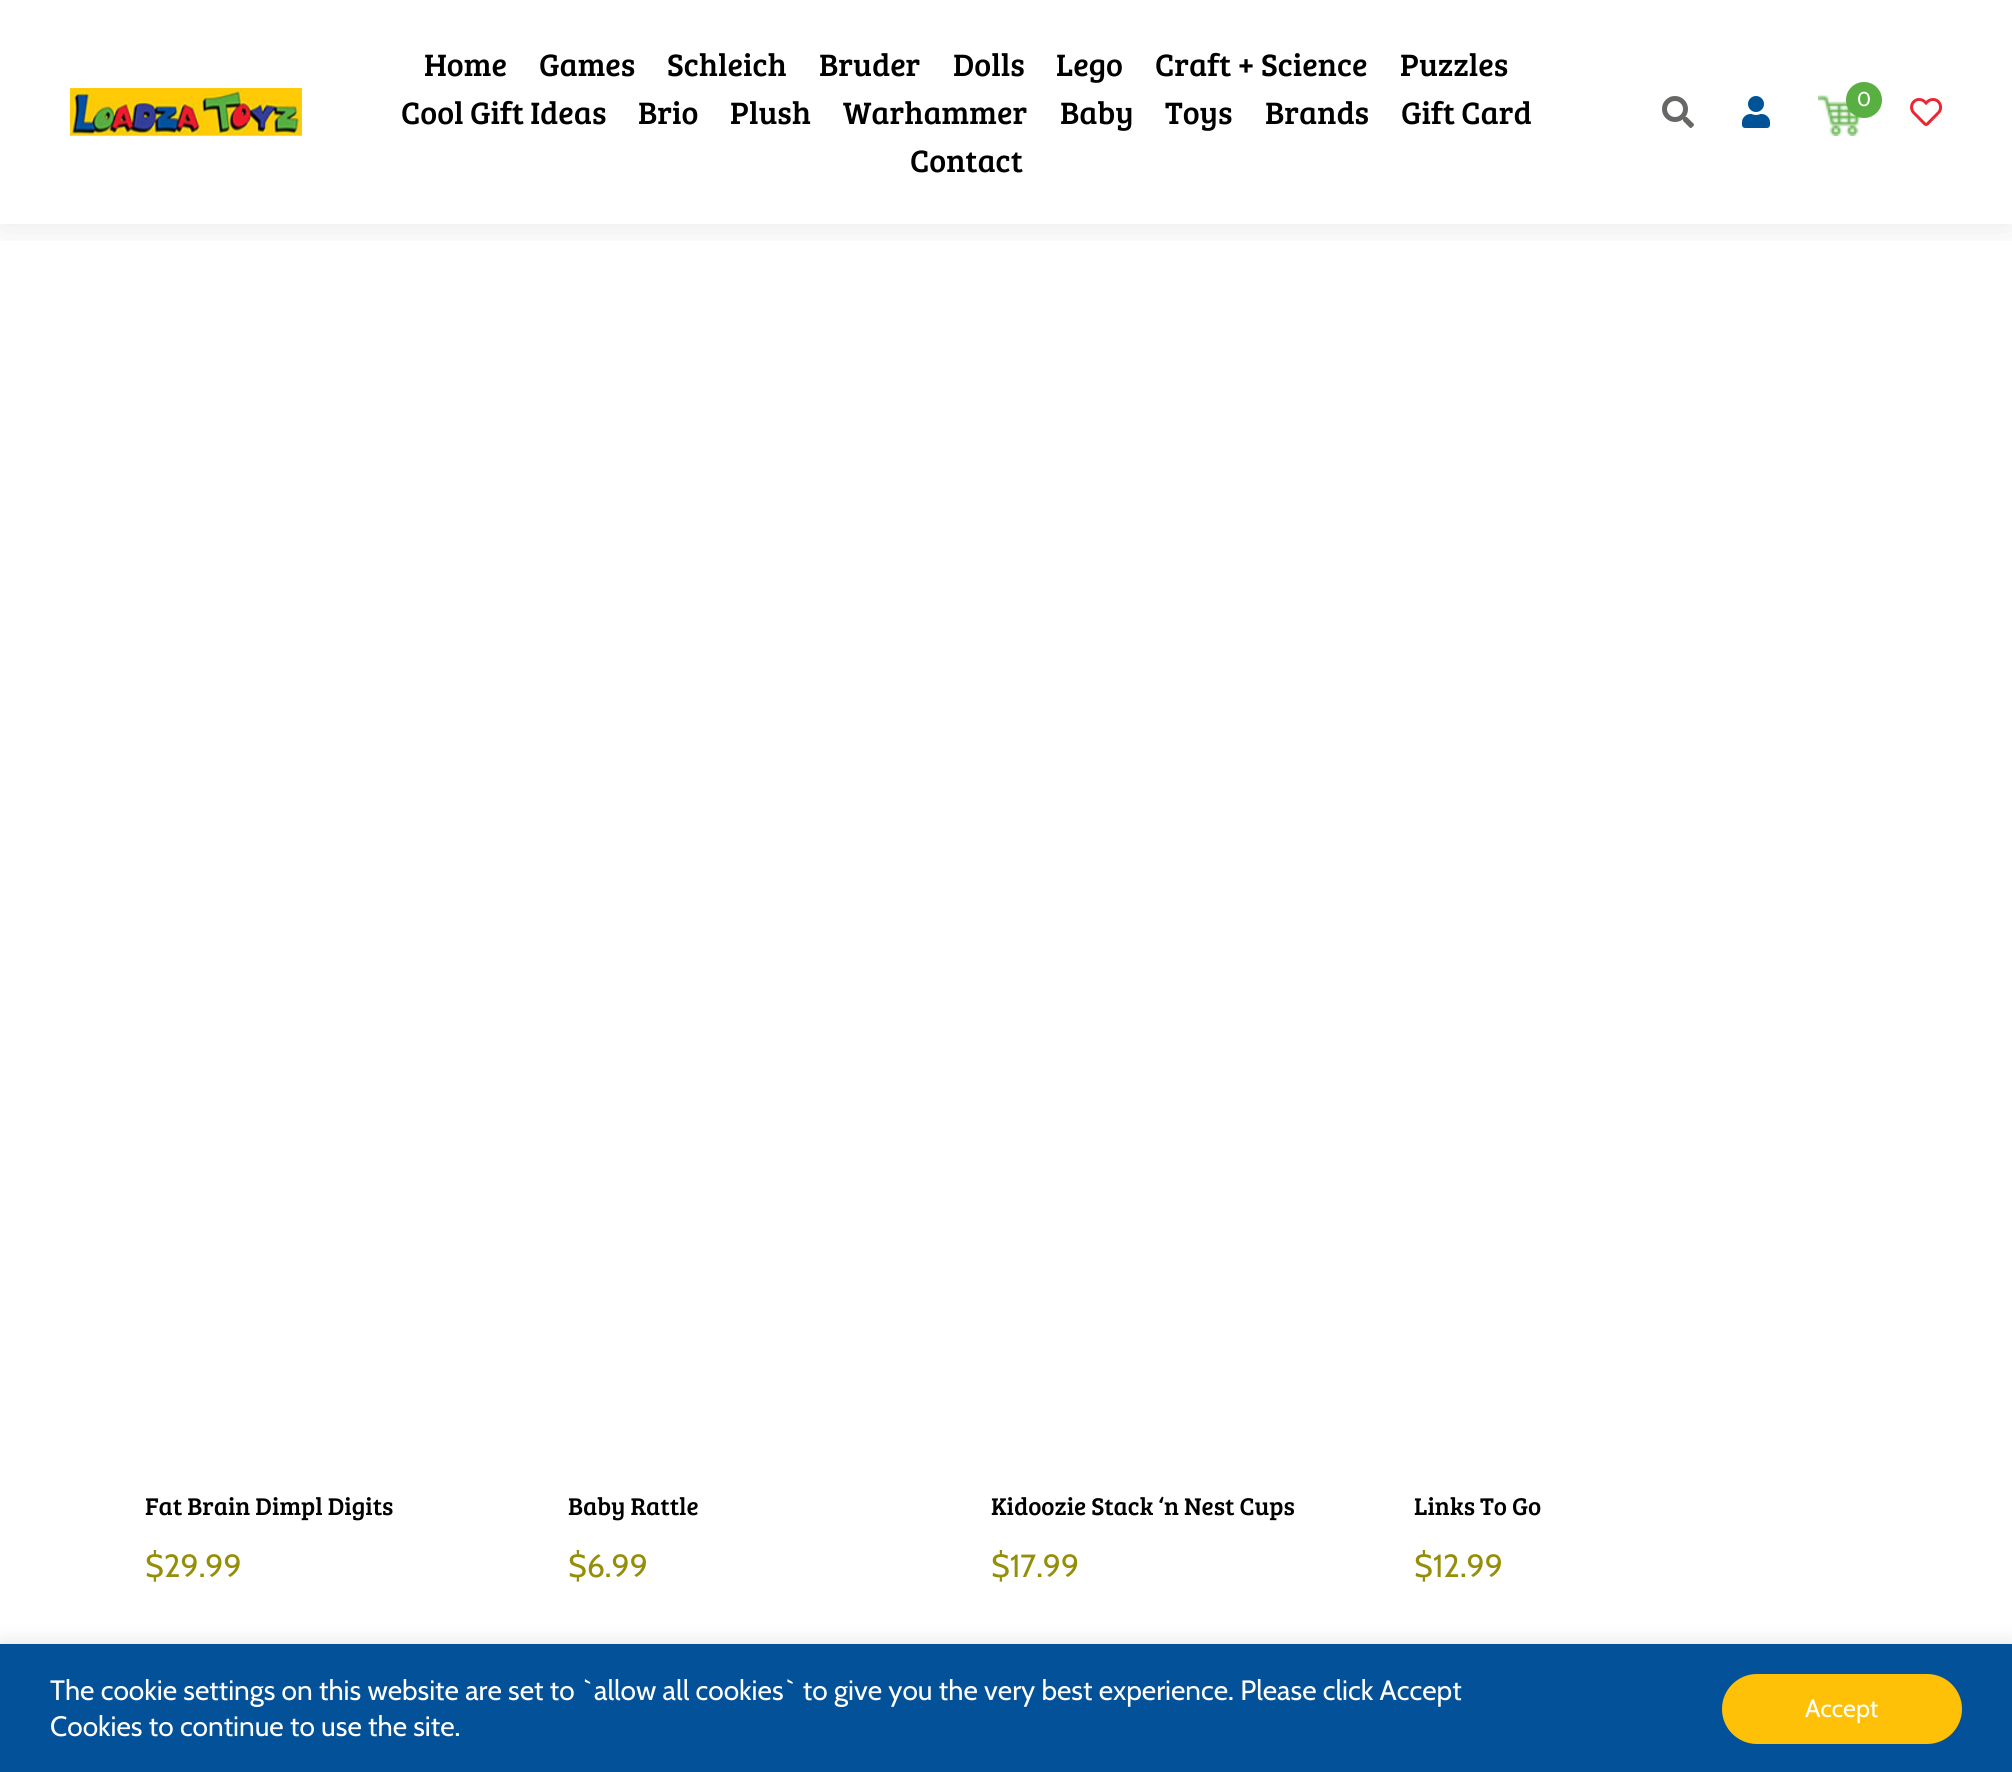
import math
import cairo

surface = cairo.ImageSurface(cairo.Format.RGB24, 2012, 1772)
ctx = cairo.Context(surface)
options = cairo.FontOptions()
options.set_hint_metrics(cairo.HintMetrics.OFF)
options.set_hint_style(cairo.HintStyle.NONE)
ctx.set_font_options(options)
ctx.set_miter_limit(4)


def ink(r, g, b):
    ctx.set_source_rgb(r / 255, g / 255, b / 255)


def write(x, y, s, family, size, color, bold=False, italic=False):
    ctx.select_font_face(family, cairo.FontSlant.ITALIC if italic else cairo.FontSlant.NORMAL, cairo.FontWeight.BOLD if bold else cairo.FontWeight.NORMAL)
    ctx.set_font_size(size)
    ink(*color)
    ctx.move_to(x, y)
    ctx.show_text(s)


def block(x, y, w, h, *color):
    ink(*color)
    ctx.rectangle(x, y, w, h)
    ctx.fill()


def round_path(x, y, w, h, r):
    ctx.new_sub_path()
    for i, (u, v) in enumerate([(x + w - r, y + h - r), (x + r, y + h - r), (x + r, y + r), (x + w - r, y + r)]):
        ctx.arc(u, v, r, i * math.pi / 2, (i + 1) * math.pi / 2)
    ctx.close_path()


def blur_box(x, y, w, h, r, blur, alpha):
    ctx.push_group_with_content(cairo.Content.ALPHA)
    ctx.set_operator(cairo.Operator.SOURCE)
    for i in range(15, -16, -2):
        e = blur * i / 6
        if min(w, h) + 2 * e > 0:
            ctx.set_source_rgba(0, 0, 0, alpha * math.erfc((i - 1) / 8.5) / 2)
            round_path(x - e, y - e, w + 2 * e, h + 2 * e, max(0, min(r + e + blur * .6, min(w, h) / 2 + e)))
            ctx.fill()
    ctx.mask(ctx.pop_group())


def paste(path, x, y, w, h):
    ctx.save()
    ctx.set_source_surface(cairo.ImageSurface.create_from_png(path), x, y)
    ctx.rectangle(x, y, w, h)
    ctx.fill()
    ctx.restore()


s1 = dict(family="Bree Serif", size=32, color=(0, 0, 0))
s2 = dict(family="Cabin", size=20, color=(255, 255, 255))
s3 = dict(family="Bree Serif", size=25, color=(0, 0, 0))
s4 = dict(family="Cabin", size=32, color=(149, 142, 9))
s5 = dict(family="Cabin", size=28, color=(255, 255, 255))
s6 = dict(family="Cabin", size=25, color=(255, 255, 255))

ink(255, 255, 255)
ctx.paint()
ctx.save()
ctx.rectangle(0, 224, 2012, 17)
ctx.clip()
ink(0, 0, 0)
blur_box(0, 0, 2012, 224, 0, 20, 0.1)
ctx.restore()
paste("pic1.png", 70, 88, 232, 48)
write(424, 76, "Home", **s1)
write(539, 76, "Games", **s1)
write(667, 76, "Schleich", **s1)
write(819, 76, "Bruder", **s1)
write(953, 76, "Dolls", **s1)
write(1056, 76, "Lego", **s1)
write(1155, 76, "Craft + Science", **s1)
write(1400, 76, "Puzzles", **s1)
write(401, 124, "Cool Gift Ideas", **s1)
write(638, 124, "Brio", **s1)
write(730, 124, "Plush", **s1)
write(843, 124, "Warhammer", **s1)
write(1060, 124, "Baby", **s1)
write(1165, 124, "Toys", **s1)
write(1265, 124, "Brands", **s1)
write(1401, 124, "Gift Card", **s1)
write(910, 172, "Contact", **s1)
paste("pic2.png", 1662, 96, 32, 32)
paste("pic3.png", 1742, 96, 28, 32)
paste("pic4.png", 1818, 95, 43, 41)
ink(89, 175, 66)
ctx.arc(1864, 100, 18, 0, 2 * math.pi)
ctx.fill()
write(1857, 106, "0", **s2)
paste("pic5.png", 1910, 98, 33, 28)
write(145, 1515, "Fat Brain Dimpl Digits", **s3)
write(145, 1577, "$29.99", **s4)
write(568, 1515, "Baby Rattle", **s3)
write(568, 1577, "$6.99", **s4)
write(991, 1515, "Kidoozie Stack ‘n Nest Cups", **s3)
write(991, 1577, "$17.99", **s4)
write(1414, 1515, "Links To Go", **s3)
write(1414, 1577, "$12.99", **s4)
ink(172, 171, 171)
blur_box(0, 1642, 2012, 128, 0, 10, 0.3)
block(0, 1644, 2012, 128, 3, 81, 153)
write(50, 1700, "The cookie settings on this website are set to `allow all cookies` to give you the very best experience. Please click Accept", **s5)
write(50, 1736, "Cookies to continue to use the site.", **s5)
ink(255, 193, 7)
round_path(1722, 1674, 240, 70, 35)
ctx.fill()
write(1805, 1717, "Accept", **s6)
surface.write_to_png("screenshot.png")
